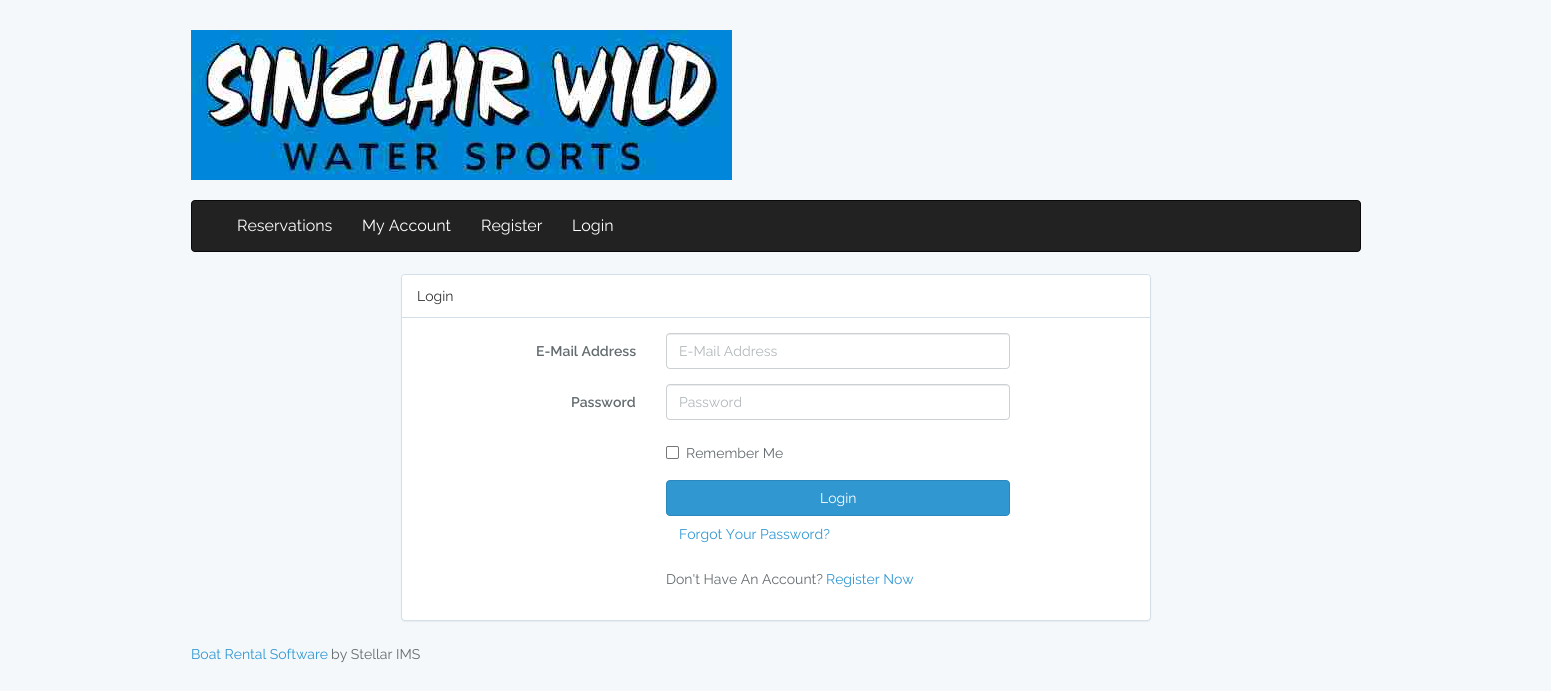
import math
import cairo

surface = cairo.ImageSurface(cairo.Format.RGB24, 1551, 691)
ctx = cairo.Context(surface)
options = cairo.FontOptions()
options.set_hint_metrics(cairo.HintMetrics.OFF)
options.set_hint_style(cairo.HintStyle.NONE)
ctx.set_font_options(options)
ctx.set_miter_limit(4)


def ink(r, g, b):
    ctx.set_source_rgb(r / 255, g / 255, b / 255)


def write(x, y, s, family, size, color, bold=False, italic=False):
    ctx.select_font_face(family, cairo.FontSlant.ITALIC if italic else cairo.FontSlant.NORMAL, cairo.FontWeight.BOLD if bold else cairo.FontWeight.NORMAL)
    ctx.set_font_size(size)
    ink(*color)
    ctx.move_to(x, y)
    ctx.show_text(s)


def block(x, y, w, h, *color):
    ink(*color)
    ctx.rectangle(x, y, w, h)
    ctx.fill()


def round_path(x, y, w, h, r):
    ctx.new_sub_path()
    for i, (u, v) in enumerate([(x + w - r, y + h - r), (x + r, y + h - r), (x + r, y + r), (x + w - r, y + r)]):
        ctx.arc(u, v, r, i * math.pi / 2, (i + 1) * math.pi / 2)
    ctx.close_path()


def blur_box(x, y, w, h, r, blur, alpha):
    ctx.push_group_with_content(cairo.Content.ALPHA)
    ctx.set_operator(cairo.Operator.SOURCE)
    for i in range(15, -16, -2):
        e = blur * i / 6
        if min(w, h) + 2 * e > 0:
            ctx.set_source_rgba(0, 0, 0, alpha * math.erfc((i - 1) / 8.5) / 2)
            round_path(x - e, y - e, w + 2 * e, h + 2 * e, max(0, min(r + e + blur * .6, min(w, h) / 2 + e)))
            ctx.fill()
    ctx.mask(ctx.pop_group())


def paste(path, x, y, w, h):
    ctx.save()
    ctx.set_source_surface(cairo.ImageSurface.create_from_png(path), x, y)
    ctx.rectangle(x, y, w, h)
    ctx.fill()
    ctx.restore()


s1 = dict(family="Raleway", size=16, color=(255, 255, 255))
s2 = dict(family="Raleway", size=14, color=(51, 51, 51))
s3 = dict(family="Raleway SemiBold", size=14, color=(99, 107, 111))
s4 = dict(family="Raleway", size=14, color=(177, 183, 186))
s5 = dict(family="Raleway", size=14, color=(99, 107, 111))
s6 = dict(family="Raleway", size=14, color=(255, 255, 255))
s7 = dict(family="Raleway", size=14, color=(48, 151, 209))

ink(245, 248, 250)
ctx.paint()
paste("pic1.png", 191, 30, 541, 150)
ink(34, 34, 34)
round_path(191.5, 200.5, 1169, 51, 3.5)
ctx.fill_preserve()
ink(9, 9, 9)
ctx.set_line_width(1)
ctx.stroke()
write(237, 231, "Reservations", **s1)
write(362, 231, "My Account", **s1)
write(481, 231, "Register", **s1)
write(572, 231, "Login", **s1)
ink(0, 0, 0)
blur_box(401, 275, 750, 347, 4, 0.5, 0.05)
ink(255, 255, 255)
round_path(401.5, 274.5, 749, 346, 3.5)
ctx.fill_preserve()
ink(211, 224, 233)
ctx.stroke()
ink(255, 255, 255)
ctx.new_path()
ctx.move_to(405, 275)
ctx.line_to(1147, 275)
ctx.curve_to(1148.5, 275, 1150, 276.5, 1150, 278)
ctx.line_to(1150, 318)
ctx.line_to(402, 318)
ctx.line_to(402, 278)
ctx.curve_to(402, 276.5, 403.5, 275, 405, 275)
ctx.close_path()
ctx.fill()
block(402, 317, 748, 1, 211, 224, 233)
write(417, 301, "Login", **s2)
write(536, 356, "E-Mail Address", **s3)
ink(236, 236, 236)
ctx.new_path()
ctx.move_to(670, 335)
ctx.line_to(1006, 335)
ctx.curve_to(1008, 335, 1009, 336, 1009, 338)
ctx.curve_to(1009, 336, 1008, 334, 1006, 334)
ctx.line_to(670, 334)
ctx.curve_to(668, 334, 667, 336, 667, 338)
ctx.curve_to(667, 336, 668, 335, 670, 335)
ctx.close_path()
ctx.fill()
round_path(666.5, 333.5, 343, 35, 3.5)
ink(204, 208, 210)
ctx.stroke()
write(679, 356, "E-Mail Address", **s4)
write(571, 407, "Password", **s3)
ink(236, 236, 236)
ctx.new_path()
ctx.move_to(670, 386)
ctx.line_to(1006, 386)
ctx.curve_to(1008, 386, 1009, 387, 1009, 389)
ctx.curve_to(1009, 387, 1008, 385, 1006, 385)
ctx.line_to(670, 385)
ctx.curve_to(668, 385, 667, 387, 667, 389)
ctx.curve_to(667, 387, 668, 386, 670, 386)
ctx.close_path()
ctx.fill()
round_path(666.5, 384.5, 343, 35, 3.5)
ink(204, 208, 210)
ctx.stroke()
write(679, 407, "Password", **s4)
round_path(666.5, 446.5, 12, 12, 1.5)
ink(118, 118, 118)
ctx.stroke()
write(686, 458, "Remember Me", **s5)
ink(48, 151, 209)
round_path(666.5, 480.5, 343, 35, 3.5)
ctx.fill_preserve()
ink(42, 136, 189)
ctx.stroke()
write(820, 503, "Login", **s6)
write(679, 539, "Forgot Your Password?", **s7)
write(666, 584, "Don't Have An Account?", **s5)
write(826, 584, "Register Now", **s7)
write(191, 659, "Boat Rental Software", **s7)
write(331, 659, "by Stellar IMS", **s5)
surface.write_to_png("screenshot.png")
